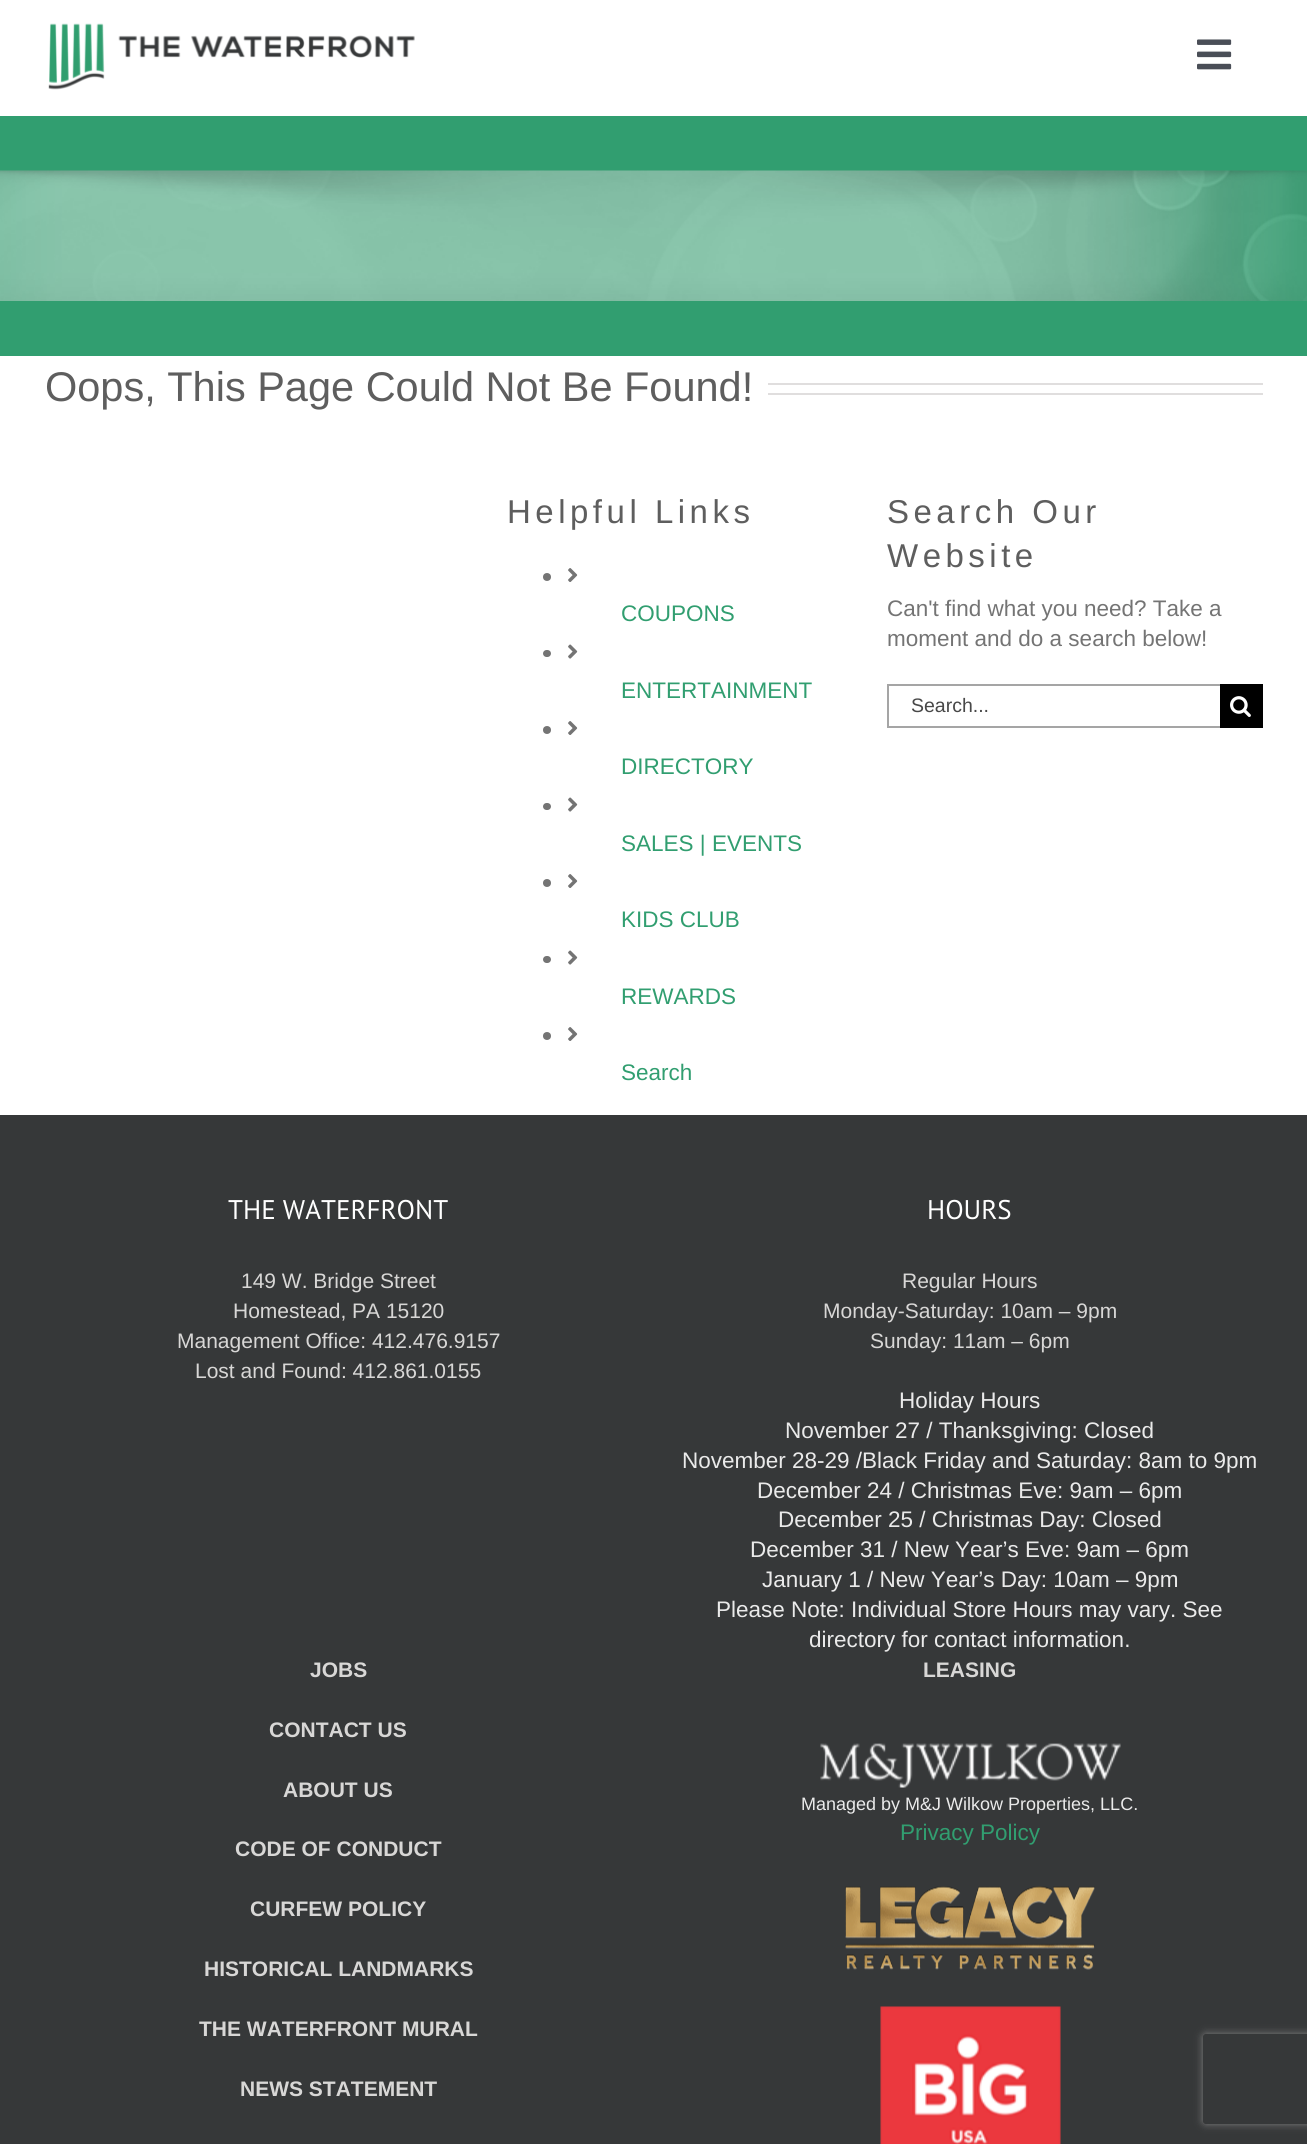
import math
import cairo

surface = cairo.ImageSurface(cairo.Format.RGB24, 1307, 2144)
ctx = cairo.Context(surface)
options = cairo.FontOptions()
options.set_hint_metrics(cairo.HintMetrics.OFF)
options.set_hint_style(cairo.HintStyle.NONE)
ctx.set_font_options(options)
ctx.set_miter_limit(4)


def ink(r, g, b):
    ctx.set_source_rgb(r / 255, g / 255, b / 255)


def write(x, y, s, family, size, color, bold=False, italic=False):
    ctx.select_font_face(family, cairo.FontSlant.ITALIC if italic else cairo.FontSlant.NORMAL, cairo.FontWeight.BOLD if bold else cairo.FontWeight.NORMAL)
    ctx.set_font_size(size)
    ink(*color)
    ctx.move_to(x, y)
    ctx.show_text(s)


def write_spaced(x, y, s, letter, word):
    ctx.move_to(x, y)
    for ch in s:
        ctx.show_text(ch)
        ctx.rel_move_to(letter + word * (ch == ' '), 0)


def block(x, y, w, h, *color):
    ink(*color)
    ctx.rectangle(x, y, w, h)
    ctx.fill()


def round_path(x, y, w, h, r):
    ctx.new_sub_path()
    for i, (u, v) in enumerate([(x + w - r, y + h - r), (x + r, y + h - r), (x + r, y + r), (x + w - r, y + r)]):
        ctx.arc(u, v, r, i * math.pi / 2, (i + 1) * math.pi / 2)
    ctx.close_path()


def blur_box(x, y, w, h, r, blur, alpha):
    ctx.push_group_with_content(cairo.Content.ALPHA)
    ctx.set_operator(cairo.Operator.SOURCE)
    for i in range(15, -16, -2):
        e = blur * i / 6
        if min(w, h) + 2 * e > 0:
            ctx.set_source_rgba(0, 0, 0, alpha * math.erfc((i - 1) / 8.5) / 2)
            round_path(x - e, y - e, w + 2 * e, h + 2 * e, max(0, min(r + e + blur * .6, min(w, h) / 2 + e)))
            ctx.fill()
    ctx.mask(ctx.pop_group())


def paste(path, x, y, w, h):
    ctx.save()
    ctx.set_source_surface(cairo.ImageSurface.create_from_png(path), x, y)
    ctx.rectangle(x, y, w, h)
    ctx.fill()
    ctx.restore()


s1 = dict(family="Liberation Sans", size=41.5, color=(94, 94, 94))
s2 = dict(family="Liberation Sans", size=22.5, color=(49, 158, 112))
s3 = dict(family="Liberation Sans", size=22.5, color=(116, 116, 116))
s4 = dict(family="Liberation Sans", size=19.5, color=(72, 72, 72))
s5 = dict(family="PT Sans", size=27, color=(255, 255, 255))
s6 = dict(family="Liberation Sans", size=21, color=(216, 215, 214))
s7 = dict(family="Liberation Sans", size=22.5, color=(234, 234, 234))
s8 = dict(family="Liberation Sans", size=21, color=(216, 215, 214), bold=True)
s9 = dict(family="Liberation Sans", size=18, color=(234, 234, 234))

ink(255, 255, 255)
ctx.paint()
paste("pic1.png", 48, 23, 367, 67)
paste("pic2.png", 1197, 39, 35, 31)
block(0, 116, 1307, 240, 49, 158, 112)
paste("pic3.png", 0, 170, 1307, 131)
write(45, 401, "Oops, This Page Could Not Be Found!", **s1)
block(768, 383, 495, 2, 224, 222, 222)
block(768, 393, 495, 2, 224, 222, 222)
ctx.set_font_size(33)
ink(94, 94, 94)
write_spaced(507, 523, "Helpful Links", 4.5, 0)
ink(116, 116, 116)
ctx.new_path()
ctx.arc(547, 577, 4, 0, 2 * math.pi)
ctx.fill()
paste("pic4.png", 568, 568, 10, 14)
write(621, 621, "COUPONS", **s2)
ink(116, 116, 116)
round_path(543, 650, 8, 7, 3.5)
ctx.fill()
paste("pic5.png", 568, 644, 10, 15)
write(621, 698, "ENTERTAINMENT", **s2)
ink(116, 116, 116)
ctx.new_path()
ctx.arc(547, 730, 4, 0, 2 * math.pi)
ctx.fill()
paste("pic4.png", 568, 721, 10, 14)
write(621, 774, "DIRECTORY", **s2)
ink(116, 116, 116)
round_path(543, 803, 8, 7, 3.5)
ctx.fill()
paste("pic5.png", 568, 797, 10, 15)
write(621, 851, "SALES | EVENTS", **s2)
ink(116, 116, 116)
ctx.new_path()
ctx.arc(547, 883, 4, 0, 2 * math.pi)
ctx.fill()
paste("pic4.png", 568, 874, 10, 14)
write(621, 927, "KIDS CLUB", **s2)
ink(116, 116, 116)
round_path(543, 956, 8, 7, 3.5)
ctx.fill()
paste("pic5.png", 568, 950, 10, 15)
write(621, 1004, "REWARDS", **s2)
ink(116, 116, 116)
ctx.new_path()
ctx.arc(547, 1036, 4, 0, 2 * math.pi)
ctx.fill()
paste("pic4.png", 568, 1027, 10, 14)
write(621, 1080, "Search", **s2)
ctx.set_font_size(33)
ink(94, 94, 94)
write_spaced(887, 523, "Search Our", 4.5, 0)
write_spaced(887, 567, "Website", 4.5, 0)
write(887, 616, "Can't find what you need? Take a", **s3)
write(887, 646, "moment and do a search below!", **s3)
block(887, 684, 333, 2, 165, 165, 165)
block(887, 726, 333, 2, 165, 165, 165)
block(887, 684, 2, 44, 165, 165, 165)
write(911, 712, "Search...", **s4)
block(1220, 684, 43, 44, 0, 0, 0)
paste("pic6.png", 1230, 696, 21, 21)
block(0, 1115, 1307, 1029, 54, 56, 57)
write(228, 1219, "THE WATERFRONT", **s5)
write(241, 1288, "149 W. Bridge Street", **s6)
write(233, 1318, "Homestead, PA 15120", **s6)
write(177, 1348, "Management Office: 412.476.9157", **s6)
write(195, 1378, "Lost and Found: 412.861.0155", **s6)
write(927, 1219, "HOURS", **s5)
write(902, 1288, "Regular Hours", **s6)
write(823, 1318, "Monday-Saturday: 10am – 9pm", **s6)
write(870, 1348, "Sunday: 11am – 6pm", **s6)
write(899, 1408, "Holiday Hours", **s7)
write(785, 1438, "November 27 / Thanksgiving: Closed", **s7)
write(682, 1468, "November 28-29 /Black Friday and Saturday: 8am to 9pm", **s7)
write(757, 1498, "December 24 / Christmas Eve: 9am – 6pm", **s7)
write(778, 1527, "December 25 / Christmas Day: Closed", **s7)
write(750, 1557, "December 31 / New Year’s Eve: 9am – 6pm", **s7)
write(762, 1587, "January 1 / New Year’s Day: 10am – 9pm", **s7)
write(716, 1617, "Please Note: Individual Store Hours may vary. See", **s7)
write(809, 1647, "directory for contact information.", **s7)
write(310, 1677, "JOBS", **s8)
write(269, 1737, "CONTACT US", **s8)
write(283, 1797, "ABOUT US", **s8)
write(235, 1856, "CODE OF CONDUCT", **s8)
write(250, 1916, "CURFEW POLICY", **s8)
write(204, 1976, "HISTORICAL LANDMARKS", **s8)
write(199, 2036, "THE WATERFRONT MURAL", **s8)
write(240, 2096, "NEWS STATEMENT", **s8)
write(923, 1677, "LEASING", **s8)
paste("pic7.png", 820, 1743, 301, 45)
write(801, 1810, "Managed by M&J Wilkow Properties, LLC.", **s9)
write(900, 1840, "Privacy Policy", **s2)
paste("pic8.png", 845, 1886, 250, 84)
paste("pic9.png", 880, 2006, 181, 138)
ctx.save()
ctx.set_fill_rule(cairo.FillRule.EVEN_ODD)
ctx.new_path()
ctx.move_to(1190, 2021)
ctx.line_to(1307, 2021)
ctx.line_to(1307, 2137)
ctx.line_to(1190, 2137)
ctx.close_path()
ctx.move_to(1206, 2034)
ctx.line_to(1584, 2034)
ctx.curve_to(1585.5, 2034, 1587, 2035.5, 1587, 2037)
ctx.line_to(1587, 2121)
ctx.curve_to(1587, 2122.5, 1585.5, 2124, 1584, 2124)
ctx.line_to(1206, 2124)
ctx.curve_to(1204.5, 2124, 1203, 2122.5, 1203, 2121)
ctx.line_to(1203, 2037)
ctx.curve_to(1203, 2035.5, 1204.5, 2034, 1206, 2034)
ctx.close_path()
ctx.clip()
ink(128, 128, 128)
blur_box(1203, 2034, 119, 90, 3, 4, 1)
ctx.restore()
surface.write_to_png("screenshot.png")
